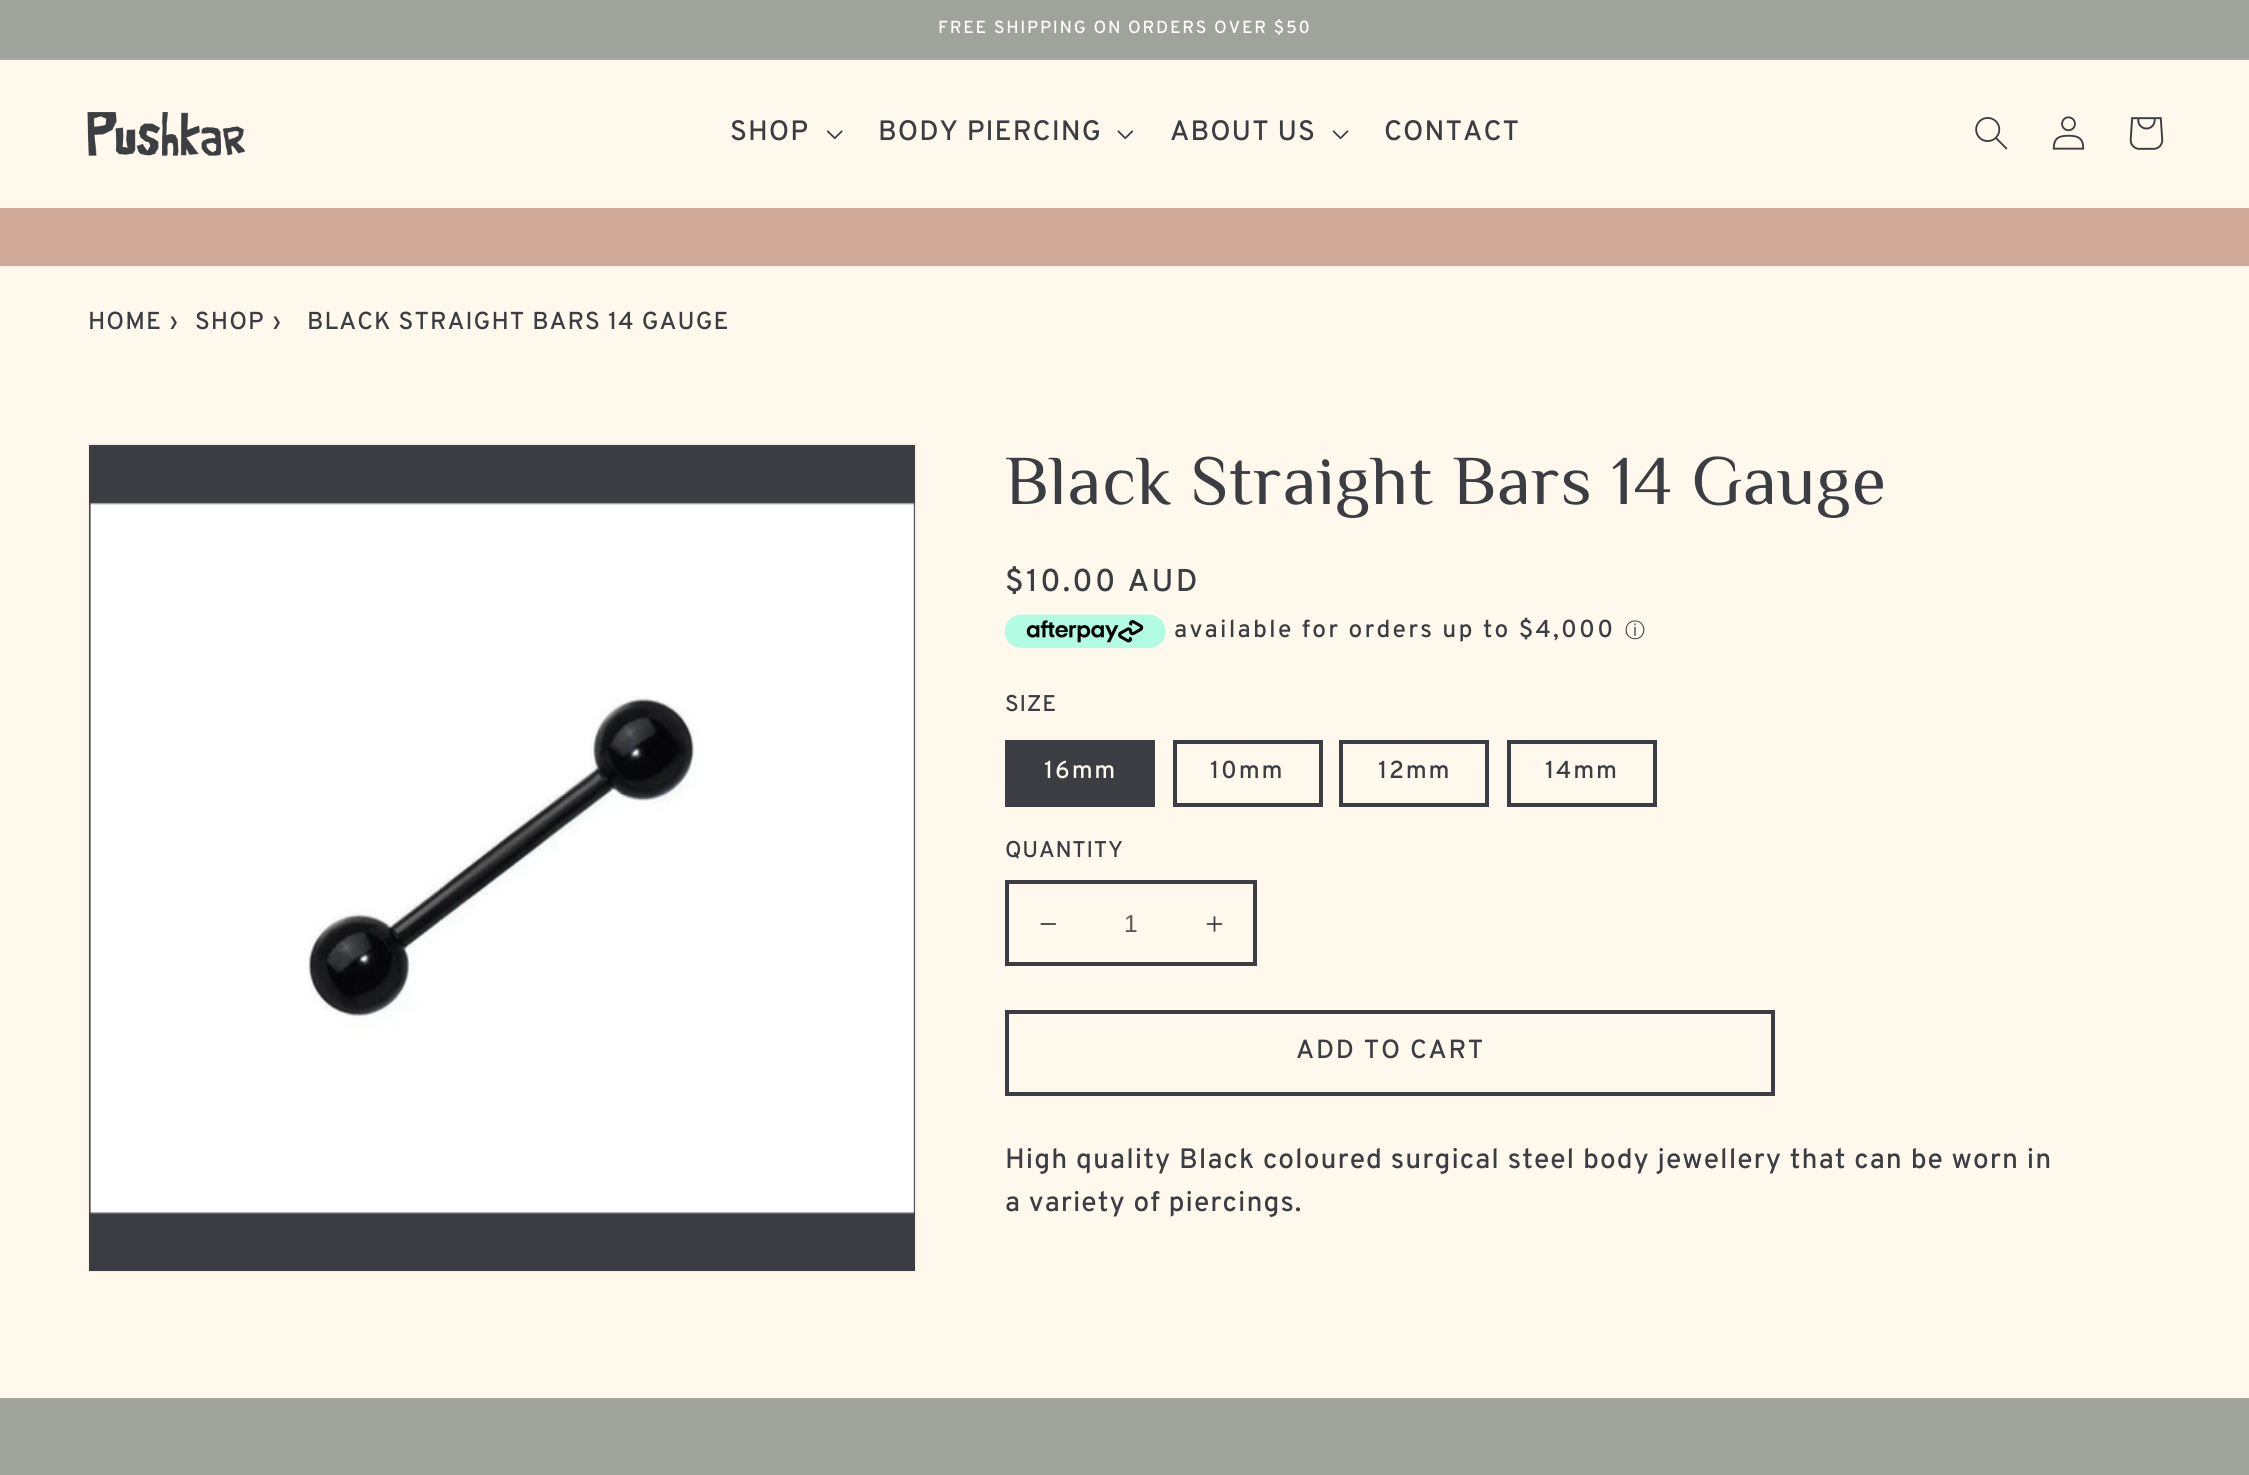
import math
import cairo

surface = cairo.ImageSurface(cairo.Format.RGB24, 2249, 1475)
ctx = cairo.Context(surface)
options = cairo.FontOptions()
options.set_hint_metrics(cairo.HintMetrics.OFF)
options.set_hint_style(cairo.HintStyle.NONE)
ctx.set_font_options(options)
ctx.set_miter_limit(4)


def ink(r, g, b):
    ctx.set_source_rgb(r / 255, g / 255, b / 255)


def write(x, y, s, family, size, color, bold=False, italic=False):
    ctx.select_font_face(family, cairo.FontSlant.ITALIC if italic else cairo.FontSlant.NORMAL, cairo.FontWeight.BOLD if bold else cairo.FontWeight.NORMAL)
    ctx.set_font_size(size)
    ink(*color)
    ctx.move_to(x, y)
    ctx.show_text(s)


def write_spaced(x, y, s, letter, word):
    ctx.move_to(x, y)
    for ch in s:
        ctx.show_text(ch)
        ctx.rel_move_to(letter + word * (ch == ' '), 0)


def block(x, y, w, h, *color):
    ink(*color)
    ctx.rectangle(x, y, w, h)
    ctx.fill()


def paste(path, x, y, w, h):
    ctx.save()
    ctx.set_source_surface(cairo.ImageSurface.create_from_png(path), x, y)
    ctx.rectangle(x, y, w, h)
    ctx.fill()
    ctx.restore()


s1 = dict(family="WenQuanYi Zen Hei Medium", size=20, color=(60, 61, 66))
s2 = dict(family="Liberation Sans", size=24.5, color=(89, 89, 92))

ink(255, 248, 237)
ctx.paint()
block(0, 0, 2249, 58, 160, 163, 153)
block(0, 58, 2249, 2, 168, 170, 161)
ctx.select_font_face("Overpass Medium")
ctx.set_font_size(17.5)
ink(255, 255, 255)
write_spaced(938, 33, "FREE SHIPPING ON ORDERS OVER $50", 1.75, 0)
block(0, 208, 2249, 58, 207, 168, 152)
paste("pic1.png", 87, 112, 158, 44)
ctx.set_font_size(28)
ink(60, 61, 66)
write_spaced(730, 140, "SHOP", 1.05, 0)
paste("pic2.png", 826, 130, 17, 10)
write_spaced(878, 140, "BODY PIERCING", 1.05, 0)
paste("pic3.png", 1117, 130, 17, 10)
write_spaced(1170, 140, "ABOUT US", 1.05, 0)
paste("pic4.png", 1332, 130, 17, 10)
write_spaced(1384, 140, "CONTACT", 1.05, 0)
paste("pic5.png", 1975, 117, 33, 33)
paste("pic6.png", 2052, 116, 33, 34)
paste("pic7.png", 2129, 117, 35, 33)
ctx.set_font_size(24.5)
write_spaced(88, 329, "HOME", 1.05, 0)
write_spaced(170, 329, "›", 1.05, 0)
write_spaced(195, 329, "SHOP", 1.05, 0)
write_spaced(273, 329, "›", 1.05, 0)
write_spaced(307, 329, "BLACK STRAIGHT BARS 14 GAUGE", 1.05, 0)
ctx.rectangle(89, 444, 827, 827)
ink(245, 239, 228)
ctx.stroke()
block(89, 445, 826, 826, 60, 61, 66)
paste("pic8.png", 89, 502, 826, 712)
ctx.select_font_face("El Messiri")
ctx.set_font_size(70)
write_spaced(1005, 504, "Black Straight Bars 14 Gauge", 1.05, 0)
ctx.select_font_face("Overpass Medium")
ctx.set_font_size(31.5)
write_spaced(1005, 591, "$10.00 AUD", 2.25, 0)
paste("pic9.png", 1005, 614, 161, 35)
ctx.set_font_size(24.5)
write_spaced(1174, 637, "available for orders up to $4,000", 2.25, 0)
write(1625, 637, "ⓘ", **s1)
ctx.select_font_face("Overpass Medium")
ctx.set_font_size(22.75)
write_spaced(1005, 711, "SIZE", 0.75, 0)
block(1005, 740, 150, 67, 60, 61, 66)
ctx.set_font_size(24.5)
ink(255, 248, 237)
write_spaced(1044, 778, "16mm", 1.75, 0)
ctx.rectangle(1175, 742, 146, 63)
ink(60, 61, 66)
ctx.set_line_width(4)
ctx.stroke()
write_spaced(1210, 778, "10mm", 1.75, 0)
ctx.rectangle(1341, 742, 146, 63)
ctx.stroke()
write_spaced(1378, 778, "12mm", 1.75, 0)
ctx.rectangle(1509, 742, 146, 63)
ctx.stroke()
write_spaced(1545, 778, "14mm", 1.75, 0)
ctx.set_font_size(22.75)
write_spaced(1005, 857, "QUANTITY", 0.75, 0)
paste("pic10.png", 1040, 923, 16, 2)
paste("pic11.png", 1206, 916, 17, 16)
ctx.rectangle(1007, 882, 248, 82)
ctx.stroke()
write(1124, 932, "1", **s2)
ctx.rectangle(1007, 1012, 766, 82)
ink(60, 61, 66)
ctx.stroke()
ctx.select_font_face("Overpass Medium")
ctx.set_font_size(26.25)
write_spaced(1296, 1058, "ADD TO CART", 1.75, 0)
ctx.set_font_size(28)
write_spaced(1005, 1168, "High quality Black coloured surgical steel body jewellery that can be worn in", 1.05, 0)
write_spaced(1005, 1211, "a variety of piercings.", 1.05, 0)
block(0, 1398, 2249, 77, 160, 163, 153)
surface.write_to_png("screenshot.png")
